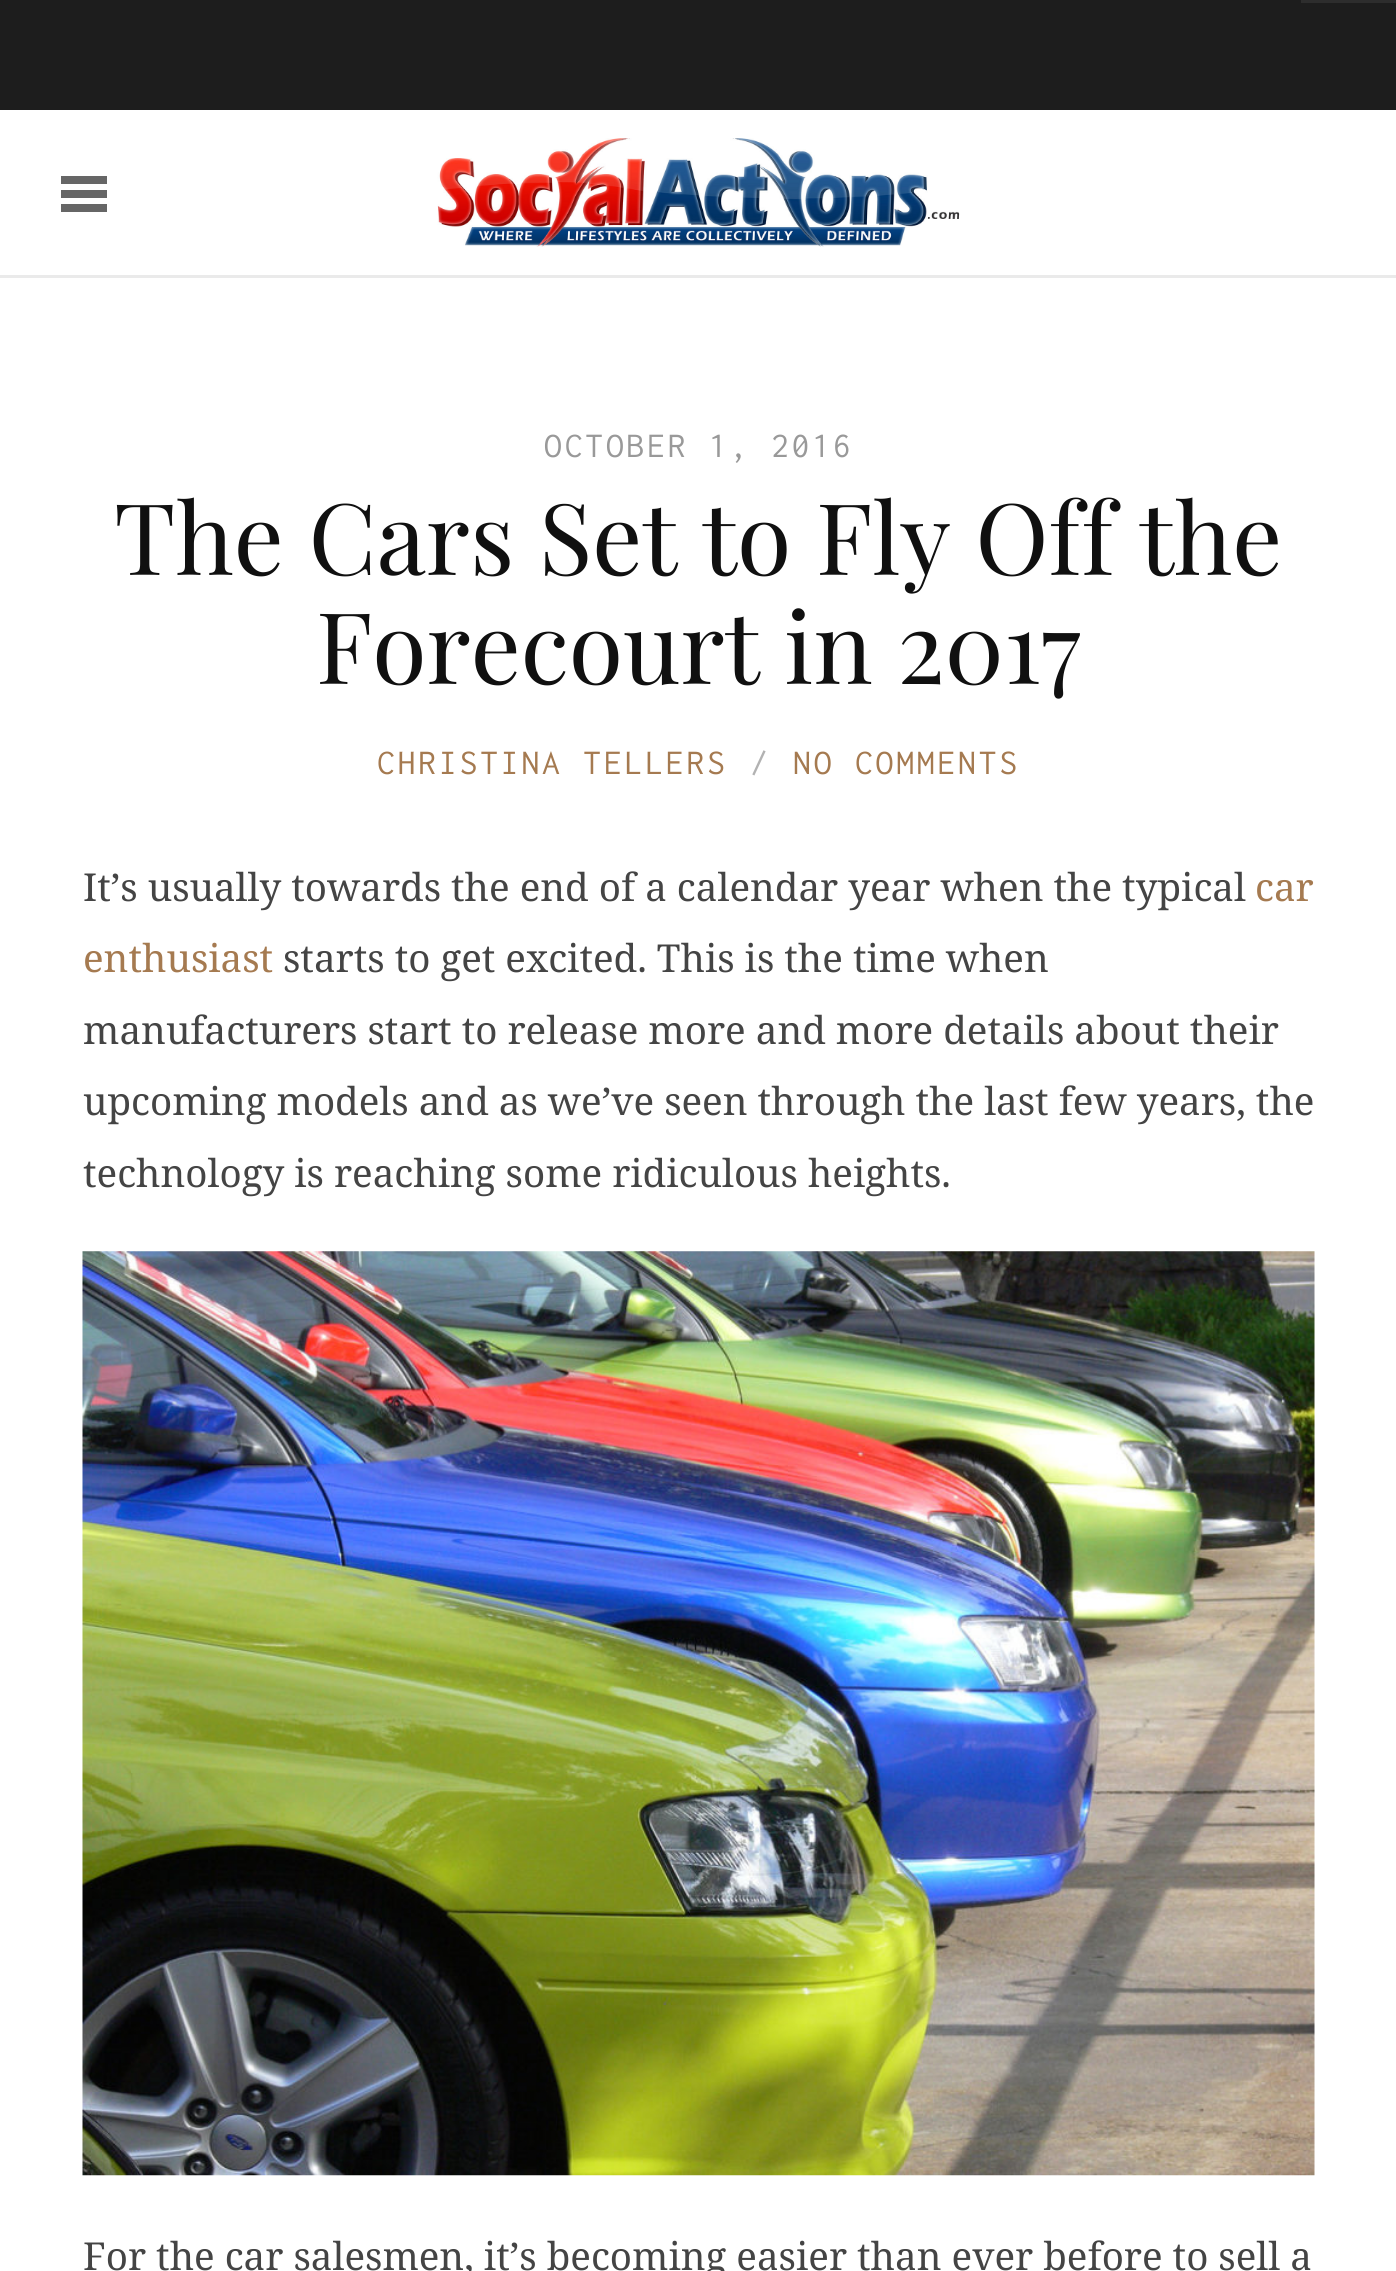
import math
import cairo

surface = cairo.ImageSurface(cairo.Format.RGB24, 1396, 2271)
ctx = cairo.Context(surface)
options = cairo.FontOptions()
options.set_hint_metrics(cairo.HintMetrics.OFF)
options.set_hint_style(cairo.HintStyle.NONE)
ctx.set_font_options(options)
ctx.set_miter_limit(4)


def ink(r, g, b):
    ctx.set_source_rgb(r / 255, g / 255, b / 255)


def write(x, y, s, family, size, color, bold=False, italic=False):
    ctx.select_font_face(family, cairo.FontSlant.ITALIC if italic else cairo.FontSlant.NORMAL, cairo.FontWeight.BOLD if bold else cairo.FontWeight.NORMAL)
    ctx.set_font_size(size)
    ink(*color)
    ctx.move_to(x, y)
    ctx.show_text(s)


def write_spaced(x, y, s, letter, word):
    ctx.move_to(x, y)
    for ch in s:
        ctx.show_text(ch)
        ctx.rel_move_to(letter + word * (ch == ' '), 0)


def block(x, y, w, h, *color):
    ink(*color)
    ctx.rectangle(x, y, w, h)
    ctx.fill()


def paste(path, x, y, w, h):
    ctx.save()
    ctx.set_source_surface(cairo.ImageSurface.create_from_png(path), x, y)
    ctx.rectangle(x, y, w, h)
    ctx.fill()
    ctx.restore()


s1 = dict(family="Playfair Display", size=99, color=(16, 16, 16))
s2 = dict(family="Noto Serif", size=38.5, color=(68, 68, 68))
s3 = dict(family="Noto Serif", size=38.5, color=(165, 122, 80))

ink(255, 255, 255)
ctx.paint()
block(0, 0, 1396, 110, 29, 29, 29)
block(1301, 0, 95, 3, 45, 45, 45)
block(61, 190, 46, 8, 102, 102, 102)
block(61, 176, 46, 8, 102, 102, 102)
block(61, 204, 46, 8, 102, 102, 102)
paste("pic1.png", 437, 138, 523, 109)
block(0, 275, 1396, 3, 234, 234, 234)
ctx.select_font_face("Inconsolata")
ctx.set_font_size(35.75)
ink(153, 153, 153)
write_spaced(544, 457, "OCTOBER 1, 2016", 2.75, 0)
write(114, 575, "The Cars Set to Fly Off the", **s1)
write(316, 684, "Forecourt in 2017", **s1)
ctx.select_font_face("Inconsolata")
ctx.set_font_size(35.75)
ink(165, 122, 80)
write_spaced(377, 774, "CHRISTINA TELLERS", 2.75, 0)
ink(178, 178, 178)
write_spaced(750, 774, "/", 2.75, 0)
ink(165, 122, 80)
write_spaced(793, 774, "NO COMMENTS", 2.75, 0)
write(83, 901, "It’s usually towards the end of a calendar year when the typical", **s2)
write(1255, 901, "car", **s3)
write(83, 972, "enthusiast", **s3)
write(283, 972, "starts to get excited. This is the time when", **s2)
write(83, 1044, "manufacturers start to release more and more details about their", **s2)
write(83, 1115, "upcoming models and as we’ve seen through the last few years, the", **s2)
write(83, 1187, "technology is reaching some ridiculous heights.", **s2)
paste("pic2.png", 82, 1251, 1233, 925)
write(83, 2270, "For the car salesmen, it’s becoming easier than ever before to sell a", **s2)
surface.write_to_png("screenshot.png")
